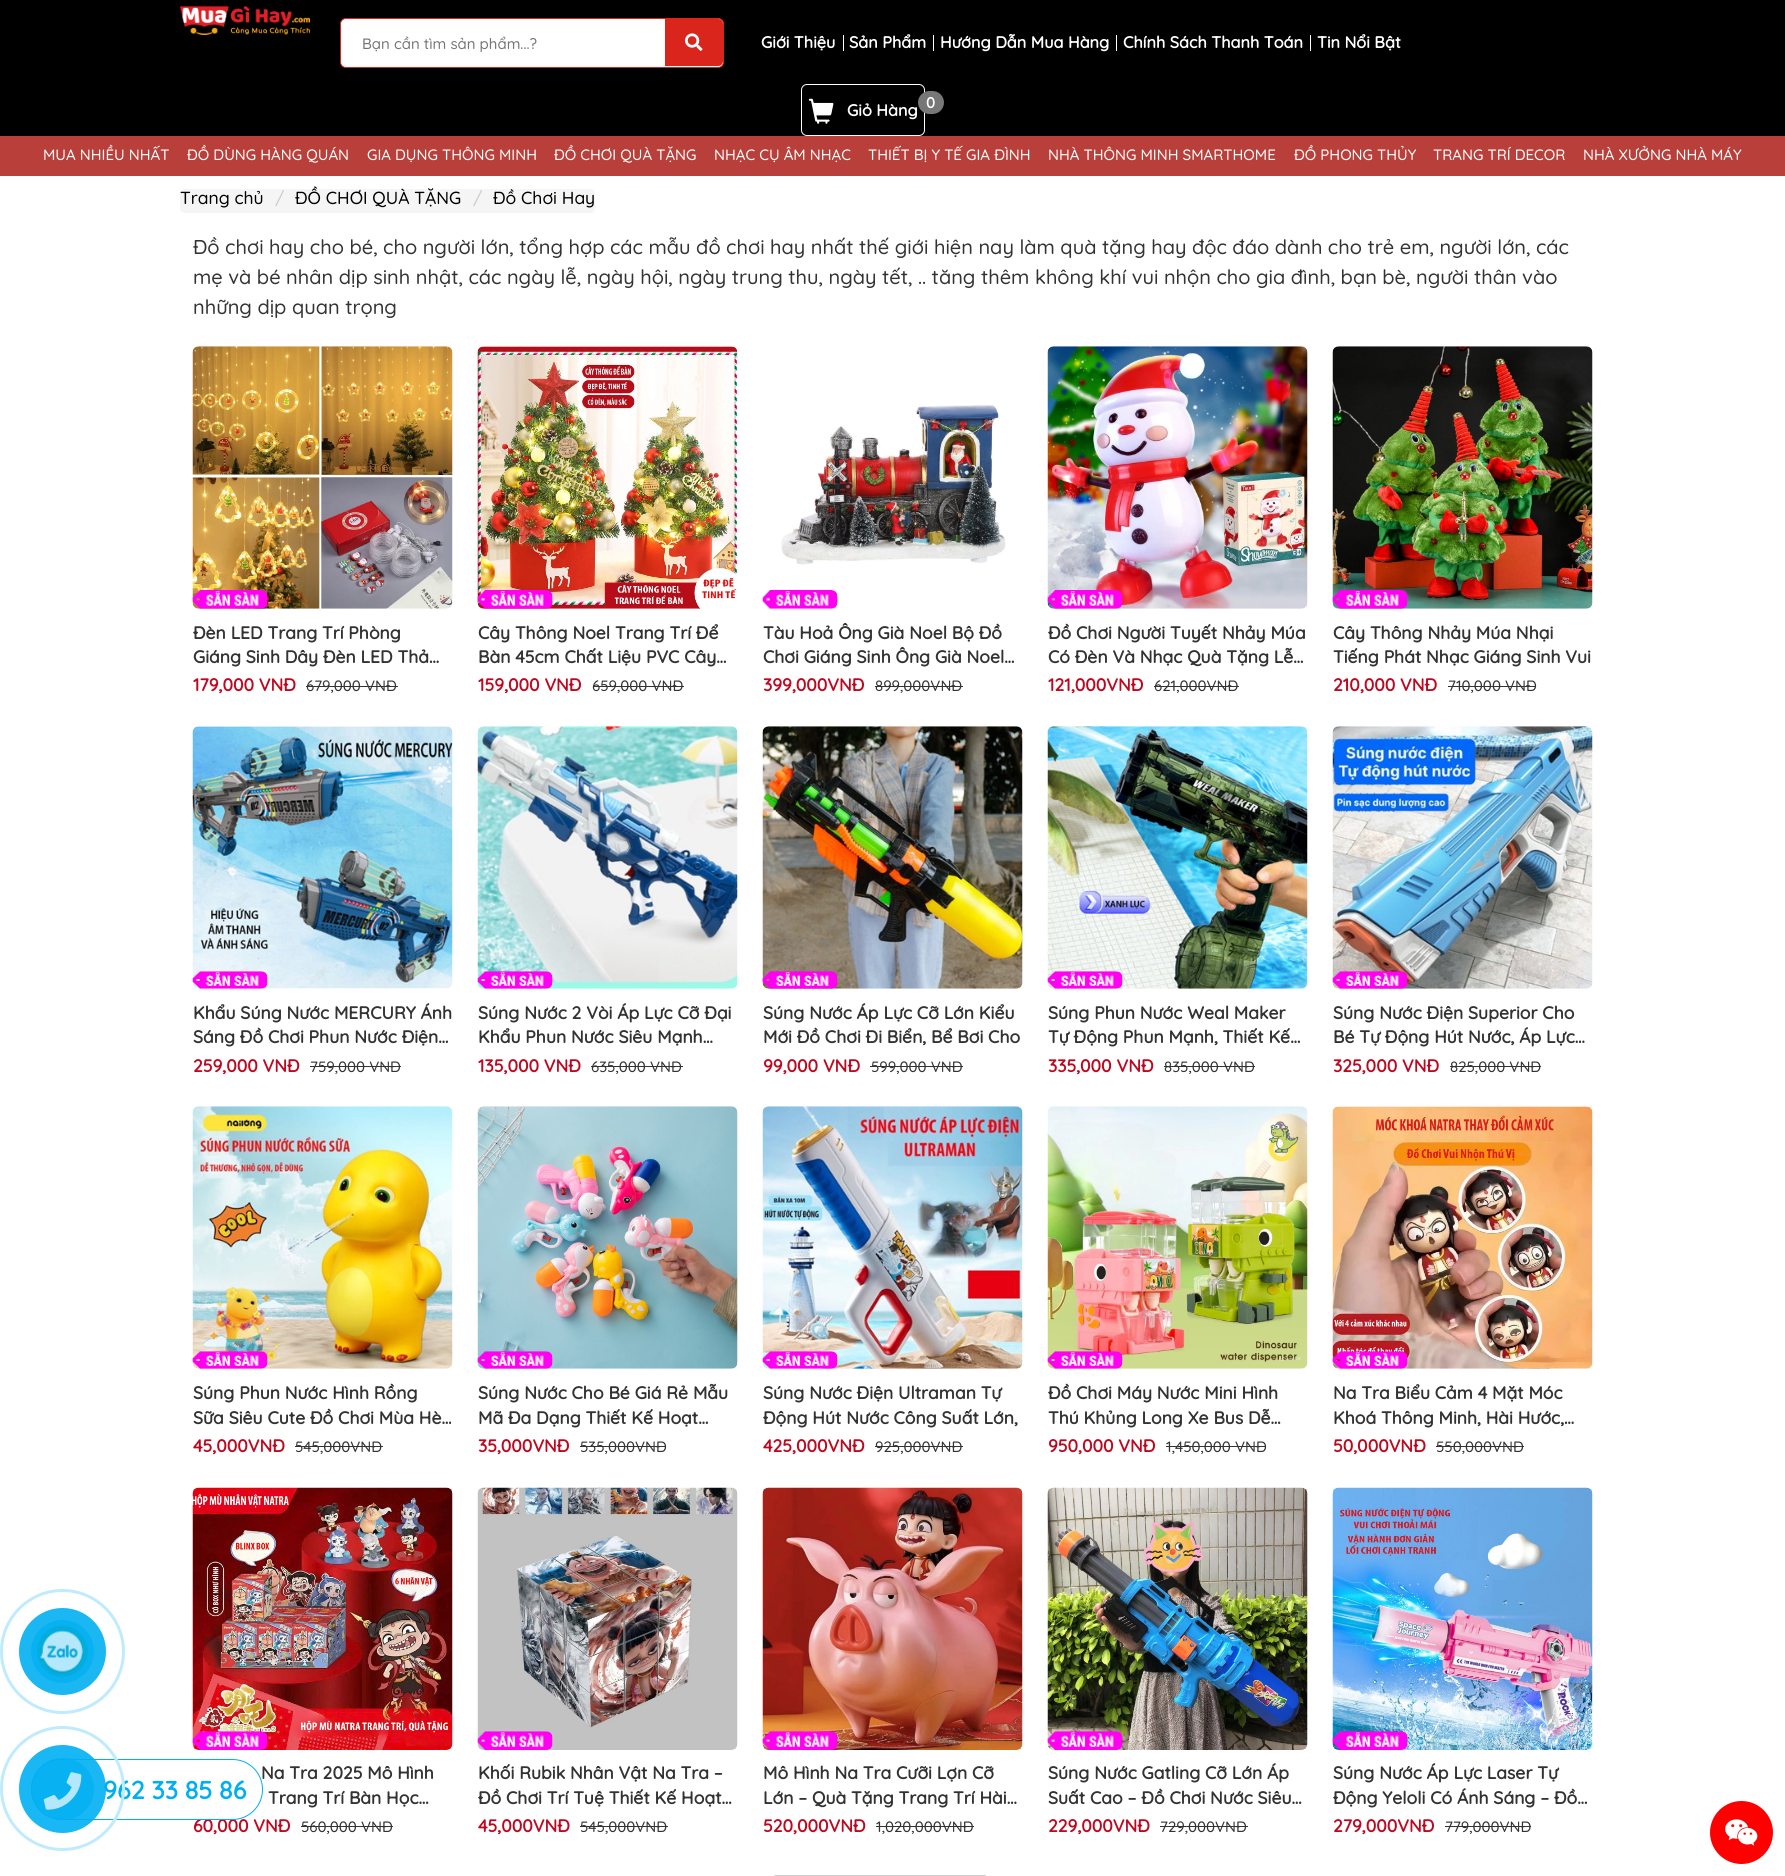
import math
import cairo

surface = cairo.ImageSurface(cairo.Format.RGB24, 1785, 1876)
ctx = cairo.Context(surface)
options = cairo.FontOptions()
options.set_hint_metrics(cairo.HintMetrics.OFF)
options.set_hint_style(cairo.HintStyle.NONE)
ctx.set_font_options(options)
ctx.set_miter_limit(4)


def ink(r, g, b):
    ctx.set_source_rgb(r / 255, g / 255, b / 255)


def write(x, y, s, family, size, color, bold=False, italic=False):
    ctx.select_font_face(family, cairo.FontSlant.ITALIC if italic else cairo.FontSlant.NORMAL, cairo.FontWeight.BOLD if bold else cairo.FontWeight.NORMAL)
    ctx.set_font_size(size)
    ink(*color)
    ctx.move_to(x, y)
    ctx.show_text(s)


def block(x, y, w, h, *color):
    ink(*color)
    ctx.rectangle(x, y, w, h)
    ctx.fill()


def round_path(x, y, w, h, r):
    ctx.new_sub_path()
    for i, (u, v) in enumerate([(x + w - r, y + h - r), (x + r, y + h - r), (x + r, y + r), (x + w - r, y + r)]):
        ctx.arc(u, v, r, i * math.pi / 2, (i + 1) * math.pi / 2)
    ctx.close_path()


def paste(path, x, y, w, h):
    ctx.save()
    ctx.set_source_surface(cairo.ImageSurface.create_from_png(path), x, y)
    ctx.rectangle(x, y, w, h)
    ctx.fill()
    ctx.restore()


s1 = dict(family="Quicksand Light", size=15, color=(117, 117, 117))
s2 = dict(family="Quicksand", size=16.25, color=(255, 255, 255), bold=True)
s3 = dict(family="Quicksand", size=15, color=(255, 255, 255), bold=True)
s4 = dict(family="Quicksand Light", size=15, color=(255, 255, 255))
s5 = dict(family="Quicksand Light", size=17.5, color=(0, 0, 0))
s6 = dict(family="Quicksand Light", size=17.5, color=(204, 204, 204))
s7 = dict(family="Quicksand Light", size=20, color=(51, 51, 51))
s8 = dict(family="Quicksand", size=17.5, color=(51, 51, 51), bold=True)
s9 = dict(family="Quicksand", size=17.5, color=(191, 8, 31), bold=True)
s10 = dict(family="Quicksand Light", size=15, color=(51, 51, 51))
s11 = dict(family="Quicksand", size=25, color=(0, 175, 242), bold=True)

ink(255, 255, 255)
ctx.paint()
block(0, 0, 1785, 136, 0, 0, 0)
paste("pic1.png", 180, 6, 130, 29)
ink(255, 255, 255)
round_path(340.5, 18.5, 383, 49, 5.5)
ctx.fill_preserve()
ink(218, 37, 28)
ctx.set_line_width(1)
ctx.stroke()
write(362, 49, "Bạn cần tìm sản phẩm...?", **s1)
ink(218, 37, 28)
ctx.new_path()
ctx.move_to(665, 19)
ctx.line_to(718, 19)
ctx.curve_to(721, 19, 723, 21, 723, 24)
ctx.line_to(723, 61)
ctx.curve_to(723, 64, 721, 66, 718, 66)
ctx.line_to(665, 66)
ctx.close_path()
ctx.fill()
paste("pic2.png", 685, 33, 18, 18)
block(843, 35, 1, 16, 255, 255, 255)
write(761, 48, "Giới Thiệu", **s2)
block(933, 35, 1, 16, 255, 255, 255)
write(849, 48, "Sản Phẩm", **s2)
block(1116, 35, 1, 16, 255, 255, 255)
write(940, 48, "Hướng Dẫn Mua Hàng", **s2)
block(1310, 35, 1, 16, 255, 255, 255)
write(1123, 48, "Chính Sách Thanh Toán", **s2)
write(1317, 48, "Tin Nổi Bật", **s2)
round_path(801.5, 84.5, 123, 51, 5.5)
ctx.stroke()
paste("pic3.png", 808, 98, 26, 26)
write(847, 116, "Giỏ Hàng", **s2)
ink(119, 119, 119)
round_path(918, 91, 26, 23, 11.5)
ctx.fill()
write(926, 108, "0", **s3)
block(0, 136, 1785, 40, 185, 64, 58)
write(43, 160, "MUA NHIỀU NHẤT", **s4)
write(187, 160, "ĐỒ DÙNG HÀNG QUÁN", **s4)
write(367, 160, "GIA DỤNG THÔNG MINH", **s4)
write(554, 160, "ĐỒ CHƠI QUÀ TẶNG", **s4)
write(714, 160, "NHẠC CỤ ÂM NHẠC", **s4)
write(868, 160, "THIẾT BỊ Y TẾ GIA ĐÌNH", **s4)
write(1048, 160, "NHÀ THÔNG MINH SMARTHOME", **s4)
write(1294, 160, "ĐỒ PHONG THỦY", **s4)
write(1433, 160, "TRANG TRÍ DECOR", **s4)
write(1583, 160, "NHÀ XƯỞNG NHÀ MÁY", **s4)
ctx.new_path()
ctx.arc(62.5, 1651.5, 61, 0, 2 * math.pi)
ink(191, 235, 252)
ctx.set_line_width(3)
ctx.stroke()
ink(26, 183, 243)
ctx.arc(62.5, 1651.5, 43.5, 0, 2 * math.pi)
ctx.fill()
ink(8, 177, 242)
ctx.arc(62.5, 1651.5, 31.5, 0, 2 * math.pi)
ctx.fill()
paste("pic4.png", 37, 1625, 51, 52)
ink(245, 245, 245)
round_path(180, 189, 415, 24, 5)
ctx.fill()
write(180, 204, "Trang chủ", **s5)
write(275, 204, "/", **s6)
write(295, 204, "ĐỒ CHƠI QUÀ TẶNG", **s5)
write(473, 204, "/", **s6)
write(493, 204, "Đồ Chơi Hay", **s5)
write(193, 254, "Đồ chơi hay cho bé, cho người lớn, tổng hợp các mẫu đồ chơi hay nhất thế giới hiện nay làm quà tặng hay độc đáo dành cho trẻ em, người lớn, các", **s7)
write(193, 284, "mẹ và bé nhân dịp sinh nhật, các ngày lễ, ngày hội, ngày trung thu, ngày tết, .. tăng thêm không khí vui nhộn cho gia đình, bạn bè, người thân vào", **s7)
write(193, 314, "những dịp quan trọng", **s7)
paste("pic5.png", 192, 346, 261, 263)
paste("pic6.png", 192, 590, 76, 19)
write(193, 639, "Đèn LED Trang Trí Phòng", **s8)
write(193, 663, "Giáng Sinh Dây Đèn LED Thả…", **s8)
write(193, 691, "179,000 VNĐ", **s9)
write(306, 691, "679,000 VNĐ", **s10)
block(306, 686, 92, 1, 51, 51, 51)
paste("pic7.png", 477, 346, 261, 263)
paste("pic8.png", 477, 590, 76, 19)
write(478, 639, "Cây Thông Noel Trang Trí Để", **s8)
write(478, 663, "Bàn 45cm Chất Liệu PVC Cây…", **s8)
write(478, 691, "159,000 VNĐ", **s9)
write(592, 691, "659,000 VNĐ", **s10)
block(593, 686, 91, 1, 51, 51, 51)
paste("pic9.png", 781, 405, 225, 160)
paste("pic10.png", 762, 590, 76, 19)
write(763, 639, "Tàu Hoả Ông Già Noel Bộ Đồ", **s8)
write(763, 663, "Chơi Giáng Sinh Ông Già Noel…", **s8)
write(763, 691, "399,000VNĐ", **s9)
write(875, 691, "899,000VNĐ", **s10)
block(875, 686, 88, 1, 51, 51, 51)
paste("pic11.png", 1047, 346, 261, 263)
paste("pic12.png", 1047, 590, 76, 19)
write(1048, 639, "Đồ Chơi Người Tuyết Nhảy Múa", **s8)
write(1048, 663, "Có Đèn Và Nhạc Quà Tặng Lễ…", **s8)
write(1048, 691, "121,000VNĐ", **s9)
write(1154, 691, "621,000VNĐ", **s10)
block(1154, 686, 85, 1, 51, 51, 51)
paste("pic13.png", 1332, 346, 261, 263)
paste("pic14.png", 1332, 590, 76, 19)
write(1333, 639, "Cây Thông Nhảy Múa Nhại", **s8)
write(1333, 663, "Tiếng Phát Nhạc Giáng Sinh Vui", **s8)
write(1333, 691, "210,000 VNĐ", **s9)
write(1448, 691, "710,000 VNĐ", **s10)
block(1448, 686, 88, 1, 51, 51, 51)
paste("pic15.png", 192, 726, 261, 263)
paste("pic16.png", 192, 971, 76, 18)
write(193, 1019, "Khẩu Súng Nước MERCURY Ánh", **s8)
write(193, 1043, "Sáng Đồ Chơi Phun Nước Điện…", **s8)
write(193, 1072, "259,000 VNĐ", **s9)
write(310, 1072, "759,000 VNĐ", **s10)
block(310, 1066, 91, 1, 51, 51, 51)
paste("pic17.png", 477, 726, 261, 263)
paste("pic18.png", 477, 971, 76, 18)
write(478, 1019, "Súng Nước 2 Vòi Áp Lực Cỡ Đại", **s8)
write(478, 1043, "Khẩu Phun Nước Siêu Mạnh…", **s8)
write(478, 1072, "135,000 VNĐ", **s9)
write(591, 1072, "635,000 VNĐ", **s10)
block(591, 1066, 92, 1, 51, 51, 51)
paste("pic19.png", 762, 726, 261, 263)
paste("pic20.png", 762, 971, 76, 18)
write(763, 1019, "Súng Nước Áp Lực Cỡ Lớn Kiểu", **s8)
write(763, 1043, "Mới Đồ Chơi Đi Biển, Bể Bơi Cho", **s8)
write(763, 1072, "99,000 VNĐ", **s9)
write(871, 1072, "599,000 VNĐ", **s10)
block(870, 1066, 93, 1, 51, 51, 51)
paste("pic21.png", 1047, 726, 261, 263)
paste("pic22.png", 1047, 971, 76, 18)
write(1048, 1019, "Súng Phun Nước Weal Maker", **s8)
write(1048, 1043, "Tự Động Phun Mạnh, Thiết Kế…", **s8)
write(1048, 1072, "335,000 VNĐ", **s9)
write(1164, 1072, "835,000 VNĐ", **s10)
block(1164, 1066, 91, 1, 51, 51, 51)
paste("pic23.png", 1332, 726, 261, 263)
paste("pic24.png", 1332, 971, 76, 18)
write(1333, 1019, "Súng Nước Điện Superior Cho", **s8)
write(1333, 1043, "Bé Tự Động Hút Nước, Áp Lực…", **s8)
write(1333, 1072, "325,000 VNĐ", **s9)
write(1450, 1072, "825,000 VNĐ", **s10)
block(1450, 1066, 91, 1, 51, 51, 51)
paste("pic25.png", 192, 1106, 261, 263)
paste("pic26.png", 192, 1351, 76, 18)
write(193, 1399, "Súng Phun Nước Hình Rồng", **s8)
write(193, 1424, "Sữa Siêu Cute Đồ Chơi Mùa Hè…", **s8)
write(193, 1452, "45,000VNĐ", **s9)
write(295, 1452, "545,000VNĐ", **s10)
block(295, 1446, 88, 1, 51, 51, 51)
paste("pic27.png", 477, 1106, 261, 263)
paste("pic28.png", 477, 1351, 76, 18)
write(478, 1399, "Súng Nước Cho Bé Giá Rẻ Mẫu", **s8)
write(478, 1424, "Mã Đa Dạng Thiết Kế Hoạt…", **s8)
write(478, 1452, "35,000VNĐ", **s9)
write(580, 1452, "535,000VNĐ", **s10)
block(580, 1446, 86, 1, 51, 51, 51)
paste("pic29.png", 762, 1106, 261, 263)
paste("pic30.png", 762, 1351, 76, 18)
write(763, 1399, "Súng Nước Điện Ultraman Tự", **s8)
write(763, 1424, "Động Hút Nước Công Suất Lớn,", **s8)
write(763, 1452, "425,000VNĐ", **s9)
write(875, 1452, "925,000VNĐ", **s10)
block(875, 1446, 88, 1, 51, 51, 51)
paste("pic31.png", 1047, 1106, 261, 263)
paste("pic32.png", 1047, 1351, 76, 18)
write(1048, 1399, "Đồ Chơi Máy Nước Mini Hình", **s8)
write(1048, 1424, "Thú Khủng Long Xe Bus Dễ…", **s8)
write(1048, 1452, "950,000 VNĐ", **s9)
write(1166, 1452, "1,450,000 VNĐ", **s10)
block(1166, 1446, 100, 1, 51, 51, 51)
paste("pic33.png", 1332, 1106, 261, 263)
paste("pic34.png", 1332, 1351, 76, 18)
write(1333, 1399, "Na Tra Biểu Cảm 4 Mặt Móc", **s8)
write(1333, 1424, "Khoá Thông Minh, Hài Hước,…", **s8)
write(1333, 1452, "50,000VNĐ", **s9)
write(1436, 1452, "550,000VNĐ", **s10)
block(1436, 1446, 88, 1, 51, 51, 51)
paste("pic35.png", 192, 1487, 261, 263)
paste("pic36.png", 192, 1731, 76, 19)
write(261, 1779, "Na Tra 2025 Mô Hình", **s8)
write(268, 1804, "Trang Trí Bàn Học…", **s8)
write(193, 1832, "60,000 VNĐ", **s9)
write(301, 1832, "560,000 VNĐ", **s10)
block(301, 1826, 92, 1, 51, 51, 51)
paste("pic37.png", 477, 1487, 261, 263)
paste("pic38.png", 477, 1731, 76, 19)
write(478, 1779, "Khối Rubik Nhân Vật Na Tra –", **s8)
write(478, 1804, "Đồ Chơi Trí Tuệ Thiết Kế Hoạt…", **s8)
write(478, 1832, "45,000VNĐ", **s9)
write(580, 1832, "545,000VNĐ", **s10)
block(580, 1826, 88, 1, 51, 51, 51)
paste("pic39.png", 762, 1487, 261, 263)
paste("pic40.png", 762, 1731, 76, 19)
write(763, 1779, "Mô Hình Na Tra Cưỡi Lợn Cỡ", **s8)
write(763, 1804, "Lớn – Quà Tặng Trang Trí Hài…", **s8)
write(763, 1832, "520,000VNĐ", **s9)
write(876, 1832, "1,020,000VNĐ", **s10)
block(876, 1826, 98, 1, 51, 51, 51)
paste("pic41.png", 1047, 1487, 261, 263)
paste("pic42.png", 1047, 1731, 76, 19)
write(1048, 1779, "Súng Nước Gatling Cỡ Lớn Áp", **s8)
write(1048, 1804, "Suất Cao – Đồ Chơi Nước Siêu…", **s8)
write(1048, 1832, "229,000VNĐ", **s9)
write(1160, 1832, "729,000VNĐ", **s10)
block(1160, 1826, 88, 1, 51, 51, 51)
paste("pic43.png", 1332, 1487, 261, 263)
paste("pic44.png", 1332, 1731, 76, 19)
write(1333, 1779, "Súng Nước Áp Lực Laser Tự", **s8)
write(1333, 1804, "Động Yeloli Có Ánh Sáng – Đồ…", **s8)
write(1333, 1832, "279,000VNĐ", **s9)
write(1445, 1832, "779,000VNĐ", **s10)
block(1445, 1826, 86, 1, 51, 51, 51)
ink(204, 204, 204)
ctx.set_fill_rule(cairo.FillRule.EVEN_ODD)
ctx.new_path()
ctx.move_to(776, 1875)
ctx.line_to(986, 1875)
ctx.line_to(986, 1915)
ctx.line_to(776, 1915)
ctx.curve_to(774, 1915, 772, 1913, 772, 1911)
ctx.line_to(772, 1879)
ctx.curve_to(772, 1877, 774, 1875, 776, 1875)
ctx.close_path()
ctx.move_to(776, 1876)
ctx.line_to(986, 1876)
ctx.line_to(986, 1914)
ctx.line_to(776, 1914)
ctx.curve_to(775, 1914, 774, 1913, 774, 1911)
ctx.line_to(774, 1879)
ctx.curve_to(774, 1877, 775, 1876, 776, 1876)
ctx.close_path()
ctx.fill()
ctx.set_source_rgba(1, 1, 1, 0.75)
round_path(31.5, 1759.5, 231, 60, 30)
ctx.fill_preserve()
ink(0, 175, 242)
ctx.set_line_width(1)
ctx.stroke()
write(103, 1799, "962 33 85 86", **s11)
ctx.new_path()
ctx.arc(62.5, 1788.5, 61, 0, 2 * math.pi)
ink(191, 235, 252)
ctx.set_line_width(3)
ctx.stroke()
ctx.set_source_rgba(0, 0.686, 0.949, 0.9)
round_path(19, 1745, 87, 88, 43.5)
ctx.fill()
ctx.set_source_rgba(0, 0.686, 0.949, 0.7)
round_path(31, 1758, 63, 62, 31)
ctx.fill()
paste("pic45.png", 43, 1772, 39, 38)
ink(255, 0, 0)
ctx.arc(1741.5, 1832.5, 31.5, 0, 2 * math.pi)
ctx.fill()
paste("pic46.png", 1725, 1819, 33, 27)
surface.write_to_png("screenshot.png")
